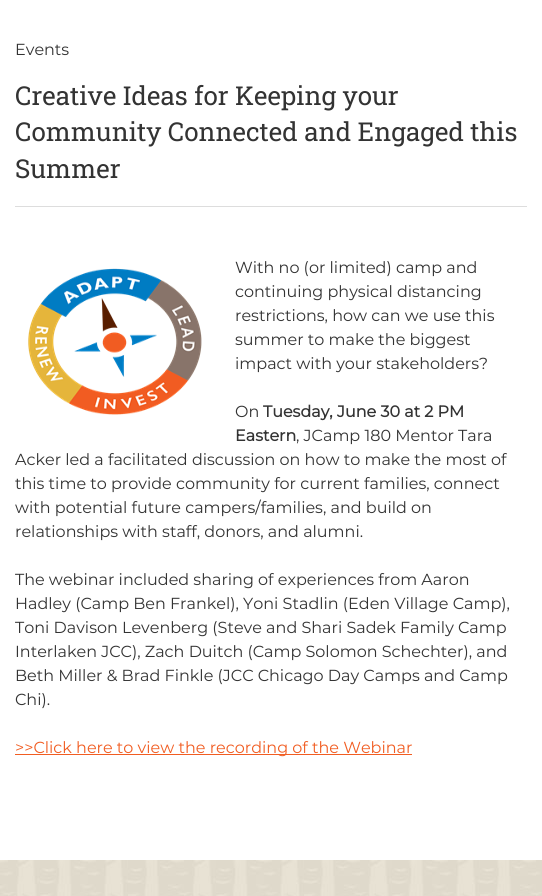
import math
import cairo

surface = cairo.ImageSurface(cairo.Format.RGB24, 542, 896)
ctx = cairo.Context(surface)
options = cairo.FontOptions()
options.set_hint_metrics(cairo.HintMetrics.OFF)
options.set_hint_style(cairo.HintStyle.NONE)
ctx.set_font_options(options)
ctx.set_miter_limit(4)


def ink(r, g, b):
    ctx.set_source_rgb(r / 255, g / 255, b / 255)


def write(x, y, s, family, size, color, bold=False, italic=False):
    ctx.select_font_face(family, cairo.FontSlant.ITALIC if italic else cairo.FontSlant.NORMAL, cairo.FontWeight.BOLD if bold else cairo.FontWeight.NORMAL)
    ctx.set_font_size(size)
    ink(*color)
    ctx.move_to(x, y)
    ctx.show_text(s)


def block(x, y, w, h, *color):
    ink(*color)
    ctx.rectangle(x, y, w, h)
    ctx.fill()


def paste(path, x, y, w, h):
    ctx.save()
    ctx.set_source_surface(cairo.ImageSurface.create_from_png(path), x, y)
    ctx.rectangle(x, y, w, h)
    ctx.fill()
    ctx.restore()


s1 = dict(family="Montserrat Thin", size=16, color=(51, 51, 51))
s2 = dict(family="Roboto Slab", size=26, color=(51, 51, 51))
s3 = dict(family="Montserrat", size=16, color=(51, 51, 51), bold=True)
s4 = dict(family="Montserrat Thin", size=16, color=(241, 93, 34))

ink(255, 255, 255)
ctx.paint()
write(15, 55, "Events", **s1)
write(15, 105, "Creative Ideas for Keeping your", **s2)
write(15, 141, "Community Connected and Engaged this", **s2)
write(15, 178, "Summer", **s2)
block(15, 206, 512, 1, 221, 221, 221)
paste("pic1.png", 28, 268, 174, 147)
write(235, 273, "With no (or limited) camp and", **s1)
write(235, 297, "continuing physical distancing", **s1)
write(235, 321, "restrictions, how can we use this", **s1)
write(235, 345, "summer to make the biggest", **s1)
write(235, 369, "impact with your stakeholders?", **s1)
write(235, 417, "On", **s1)
write(263, 417, "Tuesday, June 30 at 2 PM", **s3)
write(235, 441, "Eastern", **s3)
write(296, 441, ", JCamp 180 Mentor Tara", **s1)
write(15, 465, "Acker led a facilitated discussion on how to make the most of", **s1)
write(15, 489, "this time to provide community for current families, connect", **s1)
write(15, 513, "with potential future campers/families, and build on", **s1)
write(15, 537, "relationships with staff, donors, and alumni.", **s1)
write(15, 585, "The webinar included sharing of experiences from Aaron", **s1)
write(15, 609, "Hadley (Camp Ben Frankel), Yoni Stadlin (Eden Village Camp),", **s1)
write(15, 633, "Toni Davison Levenberg (Steve and Shari Sadek Family Camp", **s1)
write(15, 657, "Interlaken JCC), Zach Duitch (Camp Solomon Schechter), and", **s1)
write(15, 681, "Beth Miller & Brad Finkle (JCC Chicago Day Camps and Camp", **s1)
write(15, 705, "Chi).", **s1)
block(15, 754, 397, 1, 241, 93, 34)
write(15, 753, ">>Click here to view the recording of the Webinar", **s4)
paste("pic2.png", 0, 860, 542, 36)
surface.write_to_png("screenshot.png")
